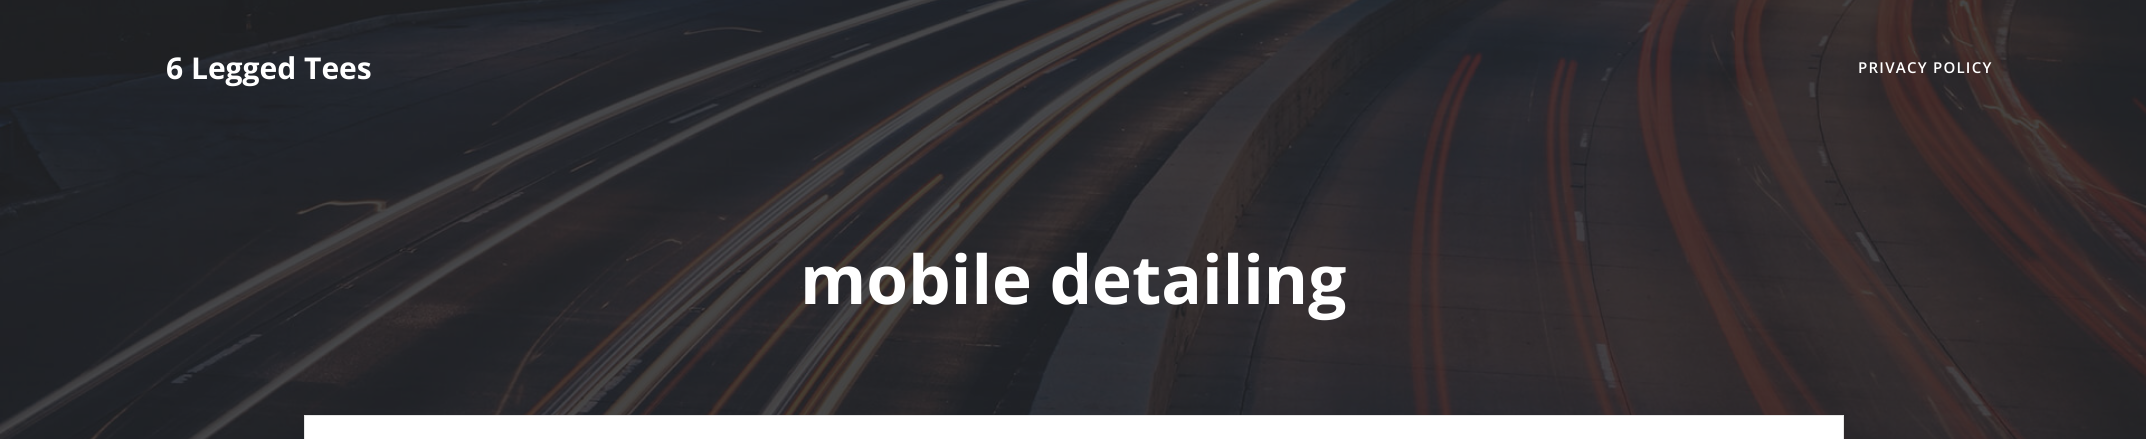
import math
import cairo

surface = cairo.ImageSurface(cairo.Format.RGB24, 2146, 439)
ctx = cairo.Context(surface)
options = cairo.FontOptions()
options.set_hint_metrics(cairo.HintMetrics.OFF)
options.set_hint_style(cairo.HintStyle.NONE)
ctx.set_font_options(options)
ctx.set_miter_limit(4)


def ink(r, g, b):
    ctx.set_source_rgb(r / 255, g / 255, b / 255)


def write(x, y, s, family, size, color, bold=False, italic=False):
    ctx.select_font_face(family, cairo.FontSlant.ITALIC if italic else cairo.FontSlant.NORMAL, cairo.FontWeight.BOLD if bold else cairo.FontWeight.NORMAL)
    ctx.set_font_size(size)
    ink(*color)
    ctx.move_to(x, y)
    ctx.show_text(s)


def write_spaced(x, y, s, letter, word):
    ctx.move_to(x, y)
    for ch in s:
        ctx.show_text(ch)
        ctx.rel_move_to(letter + word * (ch == ' '), 0)


def block(x, y, w, h, *color):
    ink(*color)
    ctx.rectangle(x, y, w, h)
    ctx.fill()


def paste(path, x, y, w, h):
    ctx.save()
    ctx.set_source_surface(cairo.ImageSurface.create_from_png(path), x, y)
    ctx.rectangle(x, y, w, h)
    ctx.fill()
    ctx.restore()


s1 = dict(family="Open Sans", size=30, color=(255, 255, 255), bold=True)
s2 = dict(family="Open Sans", size=67.5, color=(255, 255, 255), bold=True)

ink(255, 255, 255)
ctx.paint()
paste("pic1.png", 0, 0, 2146, 439)
write(166, 79, "6 Legged Tees", **s1)
ctx.select_font_face("Open Sans SemiBold")
ctx.set_font_size(15)
write_spaced(1858, 73, "PRIVACY POLICY", 1.25, 0)
write(800, 304, "mobile detailing", **s2)
block(305, 416, 1538, 23, 255, 255, 255)
block(304, 415, 1540, 1, 230, 230, 230)
block(1843, 415, 1, 24, 230, 230, 230)
block(304, 415, 1, 24, 230, 230, 230)
surface.write_to_png("screenshot.png")
